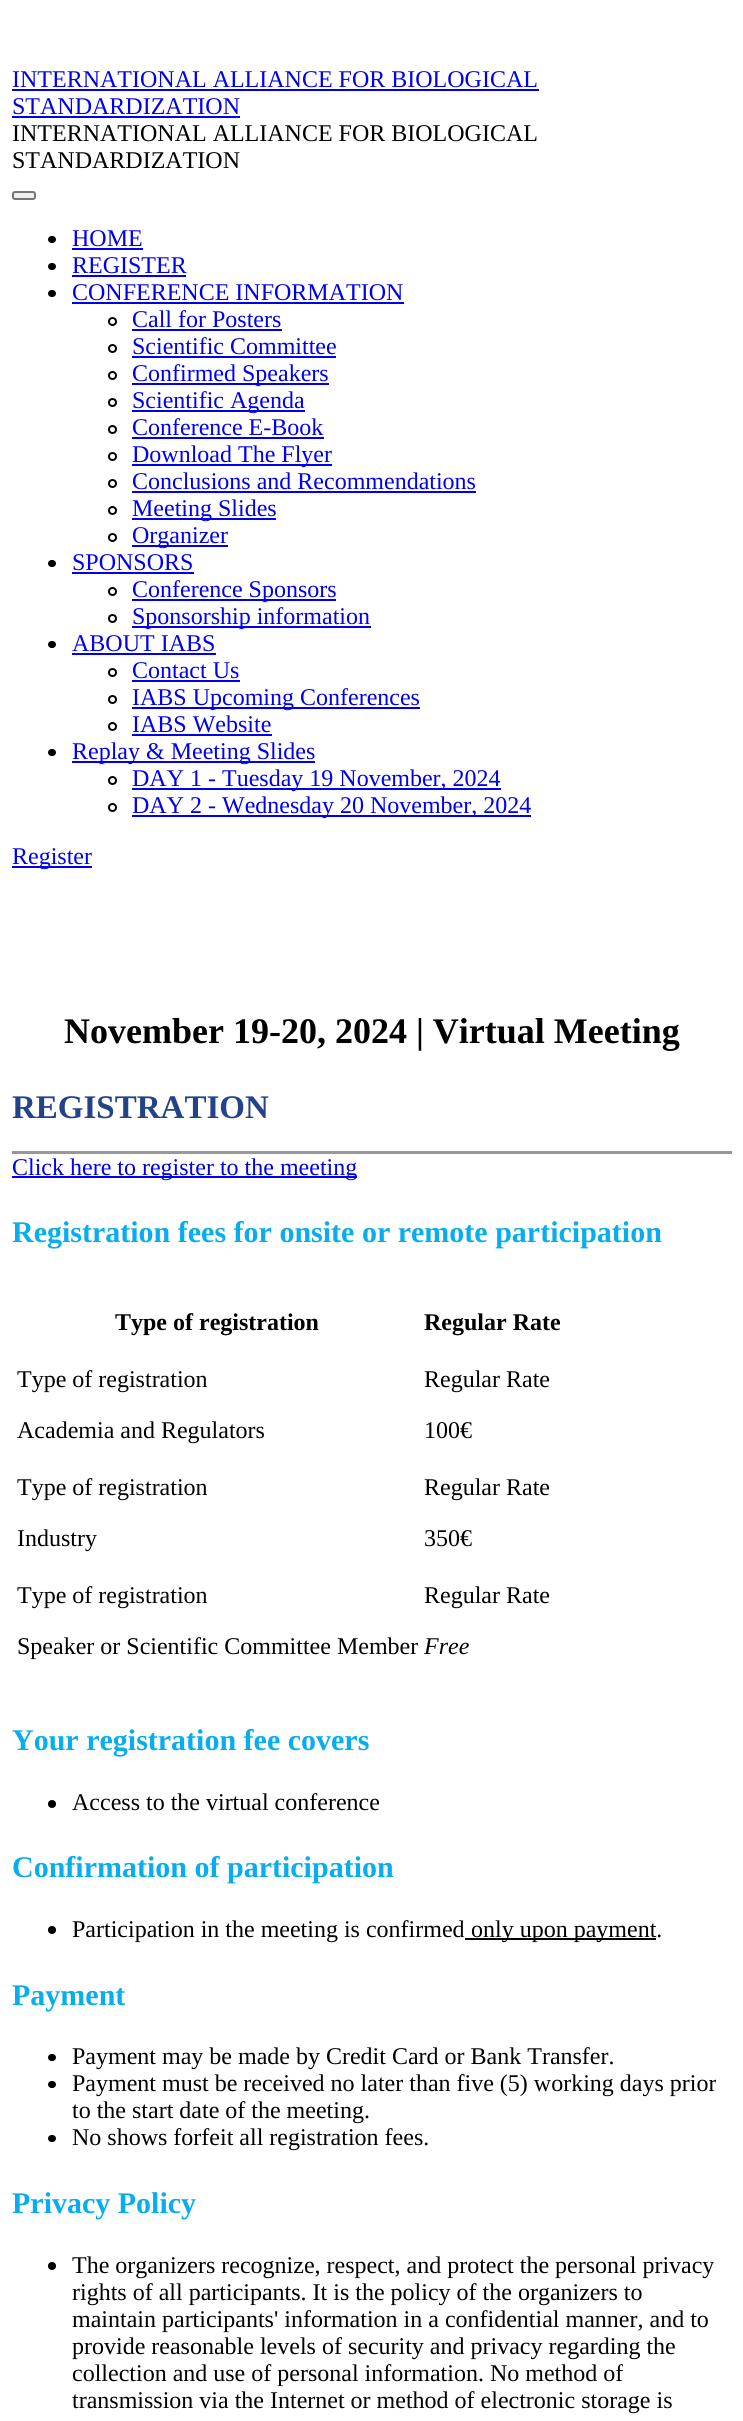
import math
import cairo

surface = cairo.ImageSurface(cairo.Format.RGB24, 743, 2421)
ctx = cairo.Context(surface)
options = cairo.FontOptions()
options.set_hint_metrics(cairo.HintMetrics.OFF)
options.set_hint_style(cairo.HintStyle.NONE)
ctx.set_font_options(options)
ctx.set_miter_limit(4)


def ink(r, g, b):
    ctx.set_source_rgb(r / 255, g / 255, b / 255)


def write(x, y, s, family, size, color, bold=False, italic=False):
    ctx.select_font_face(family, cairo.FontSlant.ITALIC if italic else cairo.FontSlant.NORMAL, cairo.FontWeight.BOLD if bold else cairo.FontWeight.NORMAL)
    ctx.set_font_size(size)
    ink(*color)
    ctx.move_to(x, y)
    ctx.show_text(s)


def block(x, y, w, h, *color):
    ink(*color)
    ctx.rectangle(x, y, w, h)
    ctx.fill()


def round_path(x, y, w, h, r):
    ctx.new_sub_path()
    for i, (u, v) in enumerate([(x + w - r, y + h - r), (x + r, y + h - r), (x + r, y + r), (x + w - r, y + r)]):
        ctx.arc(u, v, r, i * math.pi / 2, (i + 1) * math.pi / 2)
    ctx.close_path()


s1 = dict(family="Liberation Serif", size=24, color=(0, 0, 238))
s2 = dict(family="Liberation Serif", size=24, color=(0, 0, 0))
s3 = dict(family="Liberation Serif", size=36, color=(0, 0, 0), bold=True)
s4 = dict(family="Liberation Serif", size=33, color=(35, 67, 136), bold=True)
s5 = dict(family="Liberation Serif", size=30, color=(8, 173, 239), bold=True)
s6 = dict(family="Liberation Serif", size=24, color=(0, 0, 0), bold=True)
s7 = dict(family="Liberation Serif", size=24, color=(0, 0, 0), italic=True)

ink(255, 255, 255)
ctx.paint()
write(12, 87, "INTERNATIONAL ALLIANCE FOR BIOLOGICAL", **s1)
block(12, 89, 527, 2, 0, 0, 238)
write(12, 114, "STANDARDIZATION", **s1)
block(12, 116, 228, 2, 0, 0, 238)
write(12, 141, "INTERNATIONAL ALLIANCE FOR BIOLOGICAL", **s2)
write(12, 168, "STANDARDIZATION", **s2)
ink(239, 239, 239)
round_path(13, 192, 22, 7, 2)
ctx.fill_preserve()
ink(118, 118, 118)
ctx.stroke()
ink(0, 0, 0)
round_path(48, 236, 8, 7, 3.5)
ctx.fill()
write(72, 246, "HOME", **s1)
block(72, 248, 71, 2, 0, 0, 238)
ink(0, 0, 0)
round_path(48, 263, 8, 7, 3.5)
ctx.fill()
write(72, 273, "REGISTER", **s1)
block(72, 275, 114, 2, 0, 0, 238)
ink(0, 0, 0)
round_path(48, 290, 8, 7, 3.5)
ctx.fill()
write(72, 300, "CONFERENCE INFORMATION", **s1)
block(72, 302, 332, 2, 0, 0, 238)
ctx.new_path()
ctx.arc(112.5, 321.5, 3.5, 0, 2 * math.pi)
ink(0, 0, 0)
ctx.stroke()
write(132, 327, "Call for Posters", **s1)
block(132, 329, 150, 2, 0, 0, 238)
ctx.new_path()
ctx.arc(112.5, 348.5, 3.5, 0, 2 * math.pi)
ink(0, 0, 0)
ctx.stroke()
write(132, 354, "Scientific Committee", **s1)
block(132, 356, 204, 2, 0, 0, 238)
ctx.new_path()
ctx.arc(112.5, 375.5, 3.5, 0, 2 * math.pi)
ink(0, 0, 0)
ctx.stroke()
block(132, 383, 197, 2, 0, 0, 238)
write(132, 381, "Confirmed Speakers", **s1)
ctx.new_path()
ctx.arc(112.5, 402.5, 3.5, 0, 2 * math.pi)
ink(0, 0, 0)
ctx.stroke()
block(132, 410, 173, 2, 0, 0, 238)
write(132, 408, "Scientific Agenda", **s1)
ctx.new_path()
ctx.arc(112.5, 429.5, 3.5, 0, 2 * math.pi)
ink(0, 0, 0)
ctx.stroke()
write(132, 435, "Conference E-Book", **s1)
block(132, 437, 192, 2, 0, 0, 238)
ctx.new_path()
ctx.arc(112.5, 456.5, 3.5, 0, 2 * math.pi)
ink(0, 0, 0)
ctx.stroke()
block(132, 464, 200, 2, 0, 0, 238)
write(132, 462, "Download The Flyer", **s1)
ctx.new_path()
ctx.arc(112.5, 483.5, 3.5, 0, 2 * math.pi)
ink(0, 0, 0)
ctx.stroke()
write(132, 489, "Conclusions and Recommendations", **s1)
block(132, 491, 344, 2, 0, 0, 238)
ctx.new_path()
ctx.arc(112.5, 510.5, 3.5, 0, 2 * math.pi)
ink(0, 0, 0)
ctx.stroke()
block(132, 518, 144, 2, 0, 0, 238)
write(132, 516, "Meeting Slides", **s1)
ctx.new_path()
ctx.arc(112.5, 537.5, 3.5, 0, 2 * math.pi)
ink(0, 0, 0)
ctx.stroke()
block(132, 545, 96, 2, 0, 0, 238)
write(132, 543, "Organizer", **s1)
ink(0, 0, 0)
round_path(48, 560, 8, 7, 3.5)
ctx.fill()
write(72, 570, "SPONSORS", **s1)
block(72, 572, 122, 2, 0, 0, 238)
ctx.new_path()
ctx.arc(112.5, 591.5, 3.5, 0, 2 * math.pi)
ink(0, 0, 0)
ctx.stroke()
block(132, 599, 204, 2, 0, 0, 238)
write(132, 597, "Conference Sponsors", **s1)
ctx.new_path()
ctx.arc(112.5, 618.5, 3.5, 0, 2 * math.pi)
ink(0, 0, 0)
ctx.stroke()
block(132, 626, 239, 2, 0, 0, 238)
write(132, 624, "Sponsorship information", **s1)
ink(0, 0, 0)
round_path(48, 641, 8, 7, 3.5)
ctx.fill()
write(72, 651, "ABOUT IABS", **s1)
block(72, 653, 144, 2, 0, 0, 238)
ctx.new_path()
ctx.arc(112.5, 672.5, 3.5, 0, 2 * math.pi)
ink(0, 0, 0)
ctx.stroke()
write(132, 678, "Contact Us", **s1)
block(132, 680, 108, 2, 0, 0, 238)
ctx.new_path()
ctx.arc(112.5, 699.5, 3.5, 0, 2 * math.pi)
ink(0, 0, 0)
ctx.stroke()
block(132, 707, 288, 2, 0, 0, 238)
write(132, 705, "IABS Upcoming Conferences", **s1)
ctx.new_path()
ctx.arc(112.5, 726.5, 3.5, 0, 2 * math.pi)
ink(0, 0, 0)
ctx.stroke()
write(132, 732, "IABS Website", **s1)
block(132, 734, 140, 2, 0, 0, 238)
ink(0, 0, 0)
round_path(48, 749, 8, 7, 3.5)
ctx.fill()
block(72, 761, 243, 2, 0, 0, 238)
write(72, 759, "Replay & Meeting Slides", **s1)
ctx.new_path()
ctx.arc(112.5, 780.5, 3.5, 0, 2 * math.pi)
ink(0, 0, 0)
ctx.stroke()
block(132, 788, 369, 2, 0, 0, 238)
write(132, 786, "DAY 1 - Tuesday 19 November, 2024", **s1)
ctx.new_path()
ctx.arc(112.5, 807.5, 3.5, 0, 2 * math.pi)
ink(0, 0, 0)
ctx.stroke()
block(132, 815, 399, 2, 0, 0, 238)
write(132, 813, "DAY 2 - Wednesday 20 November, 2024", **s1)
block(12, 866, 80, 2, 0, 0, 238)
write(12, 864, "Register", **s1)
write(64, 1043, "November 19-20, 2024 | Virtual Meeting", **s3)
write(12, 1118, "REGISTRATION", **s4)
block(12, 1151, 720, 3, 152, 152, 152)
block(12, 1176, 345, 2, 0, 0, 238)
write(12, 1175, "Click here to register to the meeting", **s1)
write(12, 1242, "Registration fees for onsite or remote participation", **s5)
write(115, 1330, "Type of registration", **s6)
write(424, 1330, "Regular Rate", **s6)
write(17, 1387, "Type of registration", **s2)
write(17, 1438, "Academia and Regulators", **s2)
write(424, 1387, "Regular Rate", **s2)
write(424, 1438, "100€", **s2)
write(17, 1495, "Type of registration", **s2)
write(17, 1546, "Industry", **s2)
write(424, 1495, "Regular Rate", **s2)
write(424, 1546, "350€", **s2)
write(17, 1603, "Type of registration", **s2)
write(17, 1654, "Speaker or Scientific Committee Member", **s2)
write(424, 1603, "Regular Rate", **s2)
write(424, 1654, "Free", **s7)
write(12, 1750, "Your registration fee covers", **s5)
ink(0, 0, 0)
ctx.new_path()
ctx.arc(52, 1804, 4, 0, 2 * math.pi)
ctx.fill()
write(72, 1810, "Access to the virtual conference", **s2)
write(12, 1877, "Confirmation of participation", **s5)
ink(0, 0, 0)
ctx.new_path()
ctx.arc(52, 1930, 4, 0, 2 * math.pi)
ctx.fill()
write(72, 1937, "Participation in the meeting is confirmed", **s2)
block(465, 1938, 191, 2, 0, 0, 0)
write(471, 1937, "only upon payment.", **s2)
write(12, 2005, "Payment", **s5)
ink(0, 0, 0)
round_path(48, 2054, 8, 7, 3.5)
ctx.fill()
write(72, 2064, "Payment may be made by Credit Card or Bank Transfer.", **s2)
round_path(48, 2081, 8, 7, 3.5)
ctx.fill()
write(72, 2091, "Payment must be received no later than five (5) working days prior", **s2)
write(72, 2118, "to the start date of the meeting.", **s2)
round_path(48, 2135, 8, 7, 3.5)
ctx.fill()
write(72, 2145, "No shows forfeit all registration fees.", **s2)
write(12, 2213, "Privacy Policy", **s5)
ink(0, 0, 0)
ctx.new_path()
ctx.arc(52, 2266, 4, 0, 2 * math.pi)
ctx.fill()
write(72, 2273, "The organizers recognize, respect, and protect the personal privacy", **s2)
write(72, 2300, "rights of all participants. It is the policy of the organizers to", **s2)
write(72, 2327, "maintain participants' information in a confidential manner, and to", **s2)
write(72, 2354, "provide reasonable levels of security and privacy regarding the", **s2)
write(72, 2381, "collection and use of personal information. No method of", **s2)
write(72, 2408, "transmission via the Internet or method of electronic storage is", **s2)
surface.write_to_png("screenshot.png")
